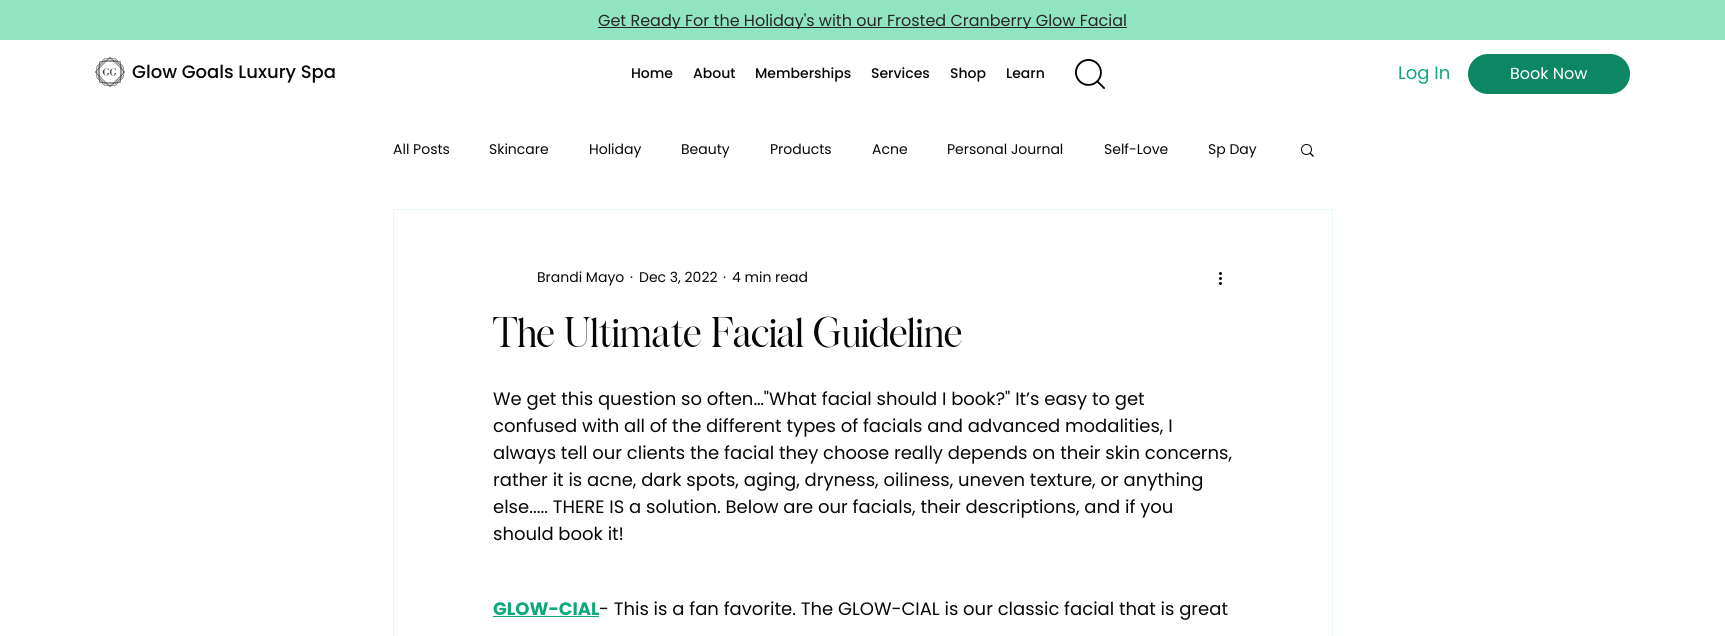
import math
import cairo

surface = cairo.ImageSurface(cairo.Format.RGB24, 1725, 636)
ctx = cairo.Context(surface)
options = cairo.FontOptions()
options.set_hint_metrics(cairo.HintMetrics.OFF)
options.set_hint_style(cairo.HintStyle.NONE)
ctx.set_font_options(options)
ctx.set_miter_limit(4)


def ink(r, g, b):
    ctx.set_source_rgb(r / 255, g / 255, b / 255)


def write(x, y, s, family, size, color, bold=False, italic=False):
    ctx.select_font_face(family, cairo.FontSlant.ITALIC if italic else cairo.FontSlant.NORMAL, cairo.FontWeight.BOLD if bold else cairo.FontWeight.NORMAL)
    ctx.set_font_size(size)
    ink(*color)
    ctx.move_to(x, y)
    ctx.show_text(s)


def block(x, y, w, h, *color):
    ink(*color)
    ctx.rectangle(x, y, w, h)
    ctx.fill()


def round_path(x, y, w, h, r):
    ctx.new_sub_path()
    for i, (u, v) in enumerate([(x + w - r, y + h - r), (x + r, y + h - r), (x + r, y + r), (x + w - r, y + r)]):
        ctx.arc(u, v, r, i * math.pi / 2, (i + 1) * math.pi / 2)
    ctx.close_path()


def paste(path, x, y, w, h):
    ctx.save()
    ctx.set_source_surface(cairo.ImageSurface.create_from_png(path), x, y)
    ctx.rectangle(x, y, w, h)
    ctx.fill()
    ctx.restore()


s1 = dict(family="Poppins", size=16, color=(40, 38, 38))
s2 = dict(family="Poppins Medium", size=18, color=(6, 8, 7))
s3 = dict(family="Poppins Medium", size=14, color=(6, 8, 7))
s4 = dict(family="Poppins", size=18, color=(15, 167, 124))
s5 = dict(family="Poppins", size=16, color=(255, 255, 255))
s6 = dict(family="Poppins", size=14, color=(6, 8, 7))
s7 = dict(family="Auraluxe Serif", size=40, color=(6, 8, 7))
s8 = dict(family="Poppins", size=18, color=(6, 8, 7))
s9 = dict(family="Poppins", size=18, color=(15, 167, 124), bold=True)

ink(255, 255, 255)
ctx.paint()
block(0, 0, 1725, 40, 144, 228, 193)
block(598, 27, 529, 1, 40, 38, 38)
ctx.save()
ctx.rectangle(598, 11, 529, 18)
ctx.clip()
write(598, 26, "Get Ready For the Holiday's with our Frosted Cranberry Glow Facial", **s1)
ctx.restore()
paste("pic1.png", 95, 57, 30, 30)
write(132, 78, "Glow Goals Luxury Spa", **s2)
write(631, 78, "Home", **s3)
write(693, 78, "About", **s3)
write(755, 78, "Memberships", **s3)
write(871, 78, "Services", **s3)
write(950, 78, "Shop", **s3)
write(1006, 78, "Learn", **s3)
paste("pic2.png", 1075, 59, 30, 30)
write(1398, 79, "Log In", **s4)
ink(12, 134, 99)
round_path(1468, 54, 162, 40, 20)
ctx.fill()
write(1510, 79, "Book Now", **s5)
write(393, 154, "All Posts", **s6)
write(489, 154, "Skincare", **s6)
write(589, 154, "Holiday", **s6)
write(681, 154, "Beauty", **s6)
write(770, 154, "Products", **s6)
write(872, 154, "Acne", **s6)
write(947, 154, "Personal Journal", **s6)
write(1104, 154, "Self-Love", **s6)
write(1208, 154, "Sp Day", **s6)
paste("pic3.png", 1301, 144, 13, 13)
ctx.rectangle(393.5, 209.5, 939, 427)
ink(230, 249, 242)
ctx.set_line_width(1)
ctx.stroke()
write(537, 282, "Brandi Mayo", **s6)
write(630, 282, "·", **s6)
write(639, 282, "Dec 3, 2022", **s6)
write(723, 282, "·", **s6)
write(732, 282, "4 min read", **s6)
paste("pic4.png", 1219, 272, 3, 13)
write(493, 347, "The Ultimate Facial Guideline", **s7)
write(493, 405, "We get this question so often…\"What facial should I book?\" It’s easy to get", **s8)
write(493, 432, "confused with all of the different types of facials and advanced modalities, I", **s8)
write(493, 459, "always tell our clients the facial they choose really depends on their skin concerns,", **s8)
write(493, 486, "rather it is acne, dark spots, aging, dryness, oiliness, uneven texture, or anything", **s8)
write(493, 513, "else..... THERE IS a solution. Below are our facials, their descriptions, and if you", **s8)
write(493, 540, "should book it!", **s8)
write(493, 615, "GLOW-CIAL", **s9)
block(493, 616, 106, 1, 15, 167, 124)
write(599, 615, "- This is a fan favorite. The GLOW-CIAL is our classic facial that is great", **s8)
surface.write_to_png("screenshot.png")
